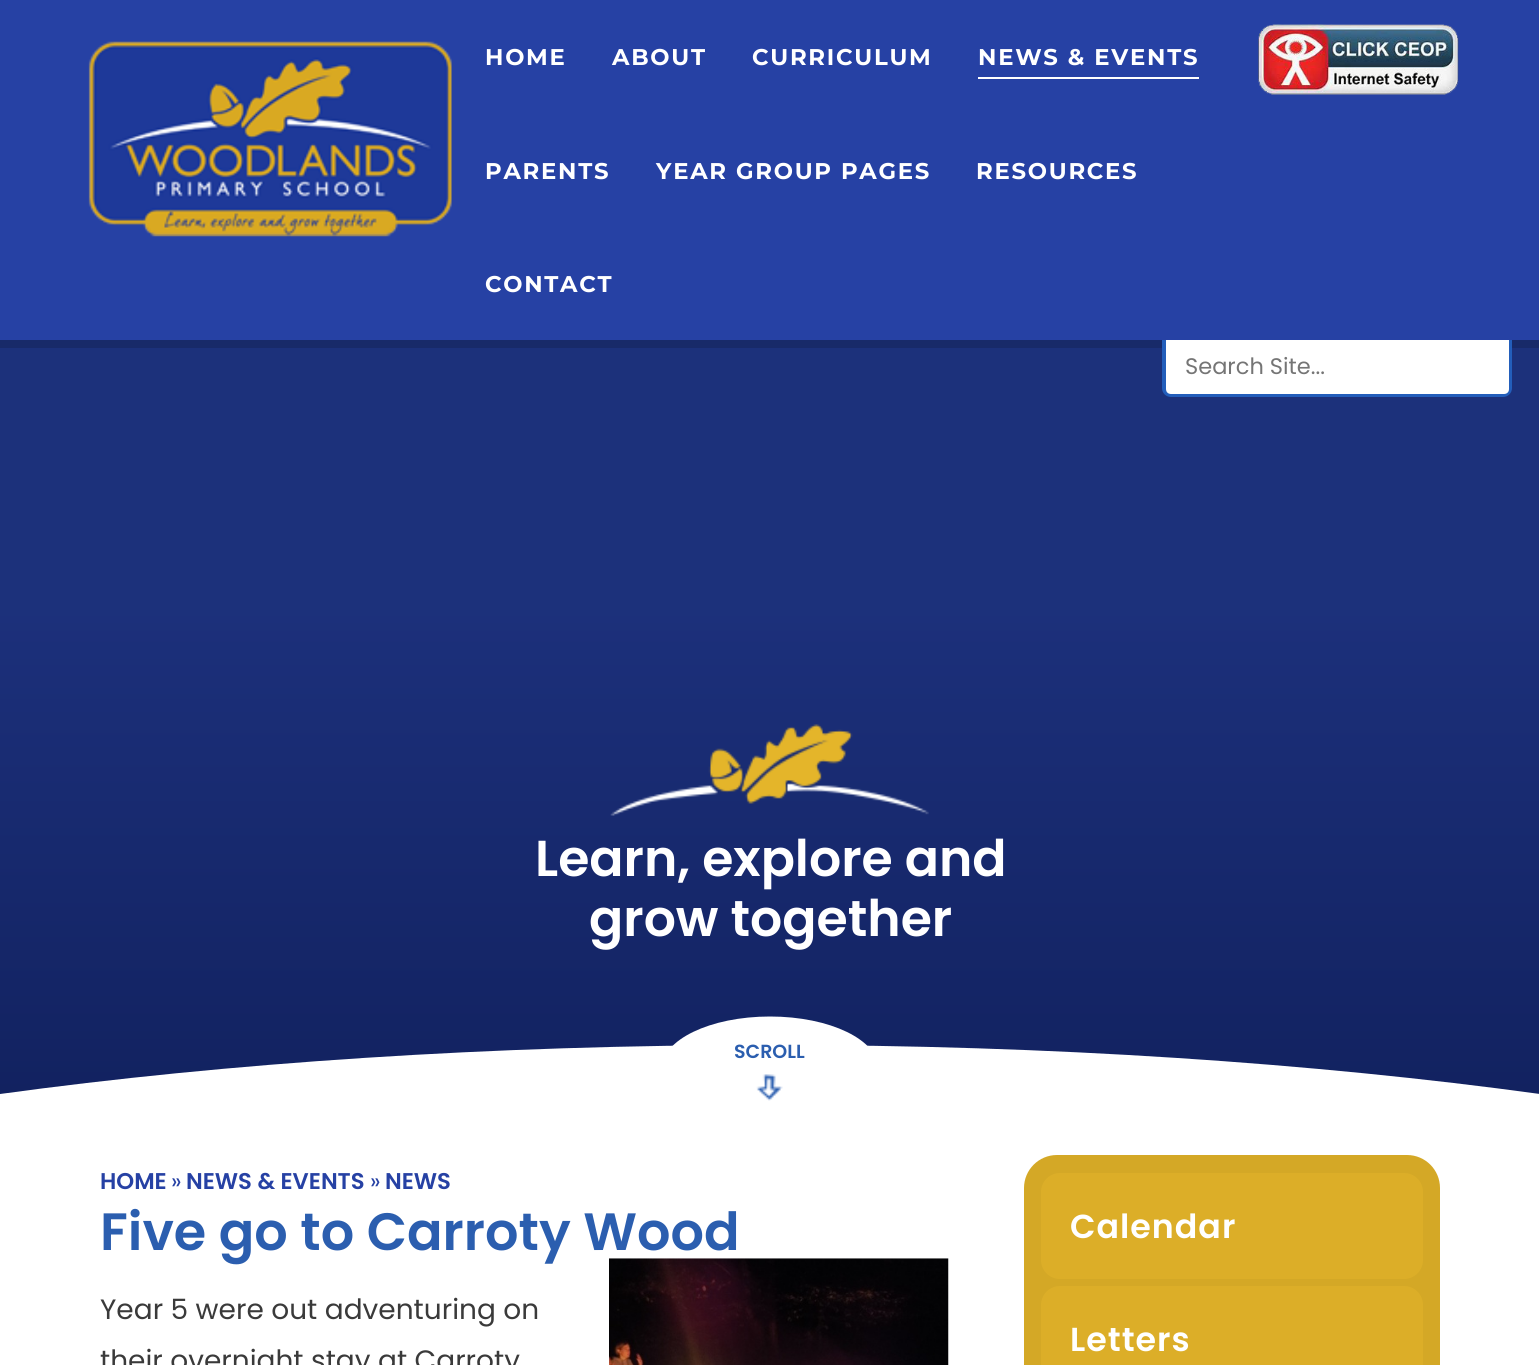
import math
import cairo

surface = cairo.ImageSurface(cairo.Format.RGB24, 1539, 1365)
ctx = cairo.Context(surface)
options = cairo.FontOptions()
options.set_hint_metrics(cairo.HintMetrics.OFF)
options.set_hint_style(cairo.HintStyle.NONE)
ctx.set_font_options(options)
ctx.set_miter_limit(4)


def ink(r, g, b):
    ctx.set_source_rgb(r / 255, g / 255, b / 255)


def write(x, y, s, family, size, color, bold=False, italic=False):
    ctx.select_font_face(family, cairo.FontSlant.ITALIC if italic else cairo.FontSlant.NORMAL, cairo.FontWeight.BOLD if bold else cairo.FontWeight.NORMAL)
    ctx.set_font_size(size)
    ink(*color)
    ctx.move_to(x, y)
    ctx.show_text(s)


def write_spaced(x, y, s, letter, word):
    ctx.move_to(x, y)
    for ch in s:
        ctx.show_text(ch)
        ctx.rel_move_to(letter + word * (ch == ' '), 0)


def block(x, y, w, h, *color):
    ink(*color)
    ctx.rectangle(x, y, w, h)
    ctx.fill()


def round_path(x, y, w, h, r):
    ctx.new_sub_path()
    for i, (u, v) in enumerate([(x + w - r, y + h - r), (x + r, y + h - r), (x + r, y + r), (x + w - r, y + r)]):
        ctx.arc(u, v, r, i * math.pi / 2, (i + 1) * math.pi / 2)
    ctx.close_path()


def paste(path, x, y, w, h):
    ctx.save()
    ctx.set_source_surface(cairo.ImageSurface.create_from_png(path), x, y)
    ctx.rectangle(x, y, w, h)
    ctx.fill()
    ctx.restore()


s1 = dict(family="Poppins", size=22.5, color=(117, 117, 117))
s2 = dict(family="Poppins SemiBold", size=50.5, color=(255, 255, 255))
s3 = dict(family="Poppins SemiBold", size=19, color=(43, 94, 175))
s4 = dict(family="Poppins SemiBold", size=22.75, color=(38, 65, 164))
s5 = dict(family="Poppins", size=22.75, color=(38, 65, 164))
s6 = dict(family="Poppins SemiBold", size=52.5, color=(43, 94, 175))
s7 = dict(family="Poppins", size=28, color=(58, 58, 58))

ink(255, 255, 255)
ctx.paint()
block(0, 0, 1539, 340, 38, 65, 164)
paste("pic1.png", 88, 41, 364, 196)
block(0, 340, 1539, 8, 24, 42, 105)
ctx.select_font_face("Montserrat", cairo.FontSlant.NORMAL, cairo.FontWeight.BOLD)
ctx.set_font_size(22.75)
ink(255, 255, 255)
write_spaced(485, 65, "HOME", 1.75, 0)
write_spaced(612, 65, "ABOUT", 1.75, 0)
write_spaced(752, 65, "CURRICULUM", 1.75, 0)
write_spaced(978, 65, "NEWS & EVENTS", 1.75, 0)
block(978, 77, 221, 2, 255, 255, 255)
write_spaced(485, 179, "PARENTS", 1.75, 0)
write_spaced(656, 179, "YEAR GROUP PAGES", 1.75, 0)
write_spaced(976, 179, "RESOURCES", 1.75, 0)
write_spaced(485, 292, "CONTACT", 1.75, 0)
paste("pic2.png", 1258, 24, 201, 71)
block(0, 348, 1539, 268, 28, 49, 123)
ink(35, 94, 187)
ctx.set_fill_rule(cairo.FillRule.EVEN_ODD)
ctx.new_path()
ctx.move_to(1162, 340)
ctx.line_to(1512, 340)
ctx.line_to(1512, 388)
ctx.curve_to(1512, 393, 1508, 397, 1503, 397)
ctx.line_to(1171, 397)
ctx.curve_to(1166, 397, 1162, 393, 1162, 388)
ctx.close_path()
ctx.move_to(1166, 340)
ctx.line_to(1508, 340)
ctx.line_to(1508, 388)
ctx.curve_to(1508, 391, 1506, 394, 1503, 394)
ctx.line_to(1171, 394)
ctx.curve_to(1168, 394, 1166, 391, 1166, 388)
ctx.close_path()
ctx.fill()
ink(255, 255, 255)
ctx.new_path()
ctx.move_to(1166, 340)
ctx.line_to(1509, 340)
ctx.line_to(1509, 389)
ctx.curve_to(1509, 392, 1507, 394, 1504, 394)
ctx.line_to(1171, 394)
ctx.curve_to(1168, 394, 1166, 392, 1166, 389)
ctx.close_path()
ctx.fill()
write(1185, 374, "Search Site...", **s1)
gradient = cairo.LinearGradient(770, 616, 770, 1127)
gradient.add_color_stop_rgba(0, 0.11, 0.188, 0.482, 1)
gradient.add_color_stop_rgba(1, 0.067, 0.129, 0.369, 1)
ctx.set_source(gradient)
ctx.rectangle(0, 616, 1539, 478)
ctx.fill()
paste("pic3.png", 610, 724, 319, 92)
write(535, 876, "Learn, explore and", **s2)
write(589, 936, "grow together", **s2)
ctx.set_fill_rule(cairo.FillRule.WINDING)
ctx.new_path()
ctx.move_to(0, 1129)
ctx.line_to(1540, 1129)
ctx.line_to(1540, 1094)
ctx.curve_to(1314, 1063, 1051, 1045, 770, 1045)
ctx.curve_to(490, 1045, 226, 1063, 0, 1094)
ctx.close_path()
ctx.fill()
ctx.new_path()
ctx.move_to(770, 1016.5)
ctx.curve_to(830, 1016.5, 878.5, 1040, 878.5, 1069)
ctx.curve_to(878.5, 1098, 830, 1121.5, 770, 1121.5)
ctx.curve_to(710, 1121.5, 661.5, 1098, 661.5, 1069)
ctx.curve_to(661.5, 1040, 710, 1016.5, 770, 1016.5)
ctx.close_path()
ctx.fill()
paste("pic4.png", 756, 1074, 27, 27)
write(734, 1058, "SCROLL", **s3)
write(100, 1189, "HOME", **s4)
write(171, 1189, "»", **s5)
write(186, 1189, "NEWS & EVENTS", **s4)
write(370, 1189, "»", **s5)
write(385, 1189, "NEWS", **s4)
write(100, 1250, "Five go to Carroty Wood", **s6)
write(100, 1319, "Year 5 were out adventuring on", **s7)
write(100, 1370, "their overnight stay at Carroty", **s7)
paste("pic5.png", 609, 1258, 340, 107)
ink(212, 168, 38)
round_path(1024, 1155, 416, 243, 33)
ctx.fill()
ink(220, 174, 40)
round_path(1041, 1173, 382, 106, 19)
ctx.fill()
ctx.select_font_face("Poppins SemiBold")
ctx.set_font_size(33.25)
ink(255, 255, 255)
write_spaced(1070, 1238, "Calendar", 1, 0)
ink(220, 174, 40)
round_path(1041, 1286, 382, 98, 19)
ctx.fill()
ink(255, 255, 255)
write_spaced(1070, 1351, "Letters", 1, 0)
surface.write_to_png("screenshot.png")
